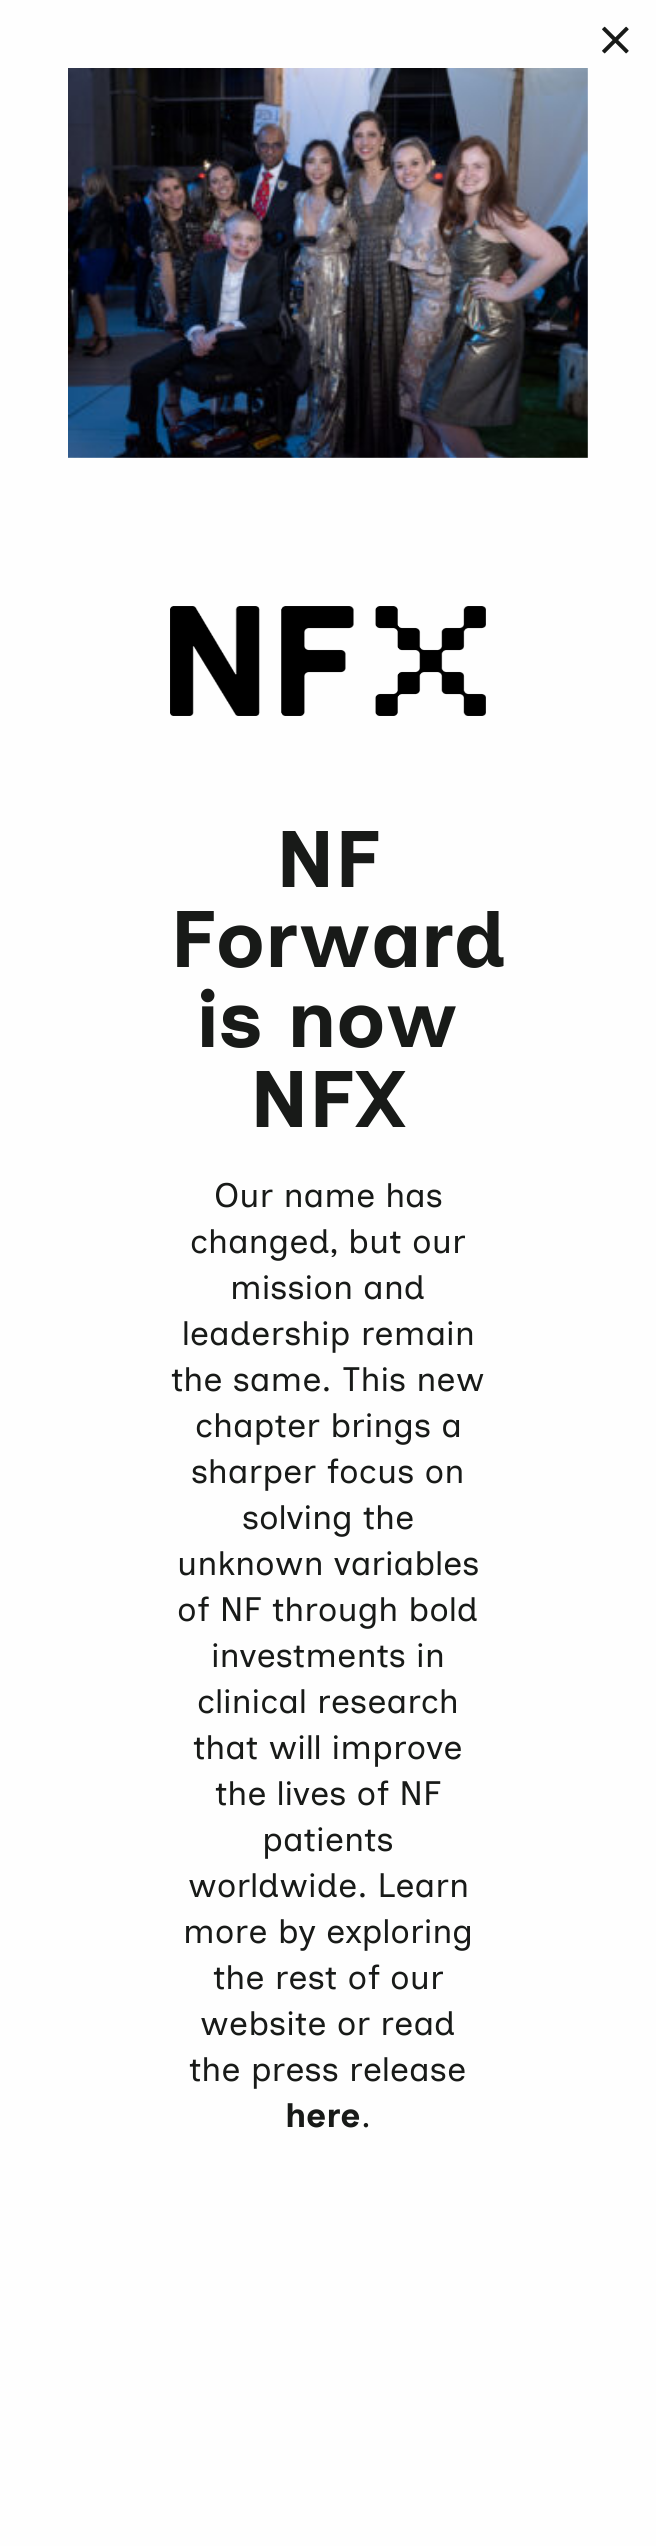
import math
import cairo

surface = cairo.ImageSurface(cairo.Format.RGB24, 656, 2546)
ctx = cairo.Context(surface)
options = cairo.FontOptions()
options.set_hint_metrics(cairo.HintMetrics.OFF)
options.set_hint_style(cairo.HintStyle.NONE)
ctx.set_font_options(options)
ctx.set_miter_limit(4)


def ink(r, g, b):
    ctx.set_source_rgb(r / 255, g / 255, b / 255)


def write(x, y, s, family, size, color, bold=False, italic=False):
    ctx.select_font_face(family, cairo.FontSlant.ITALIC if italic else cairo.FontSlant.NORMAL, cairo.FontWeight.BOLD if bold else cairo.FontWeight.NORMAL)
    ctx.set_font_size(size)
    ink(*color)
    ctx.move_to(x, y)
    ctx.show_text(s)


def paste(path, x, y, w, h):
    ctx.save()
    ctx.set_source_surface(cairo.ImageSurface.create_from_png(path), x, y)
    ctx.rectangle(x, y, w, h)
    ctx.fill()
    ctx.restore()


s1 = dict(family="Inclusive Sans", size=80, color=(24, 26, 24), bold=True)
s2 = dict(family="Inclusive Sans", size=34, color=(24, 26, 24))
s3 = dict(family="Inclusive Sans", size=34, color=(24, 26, 24), bold=True)

ink(254, 254, 254)
ctx.paint()
paste("pic1.png", 602, 26, 27, 28)
paste("pic2.png", 68, 68, 520, 390)
paste("pic3.png", 170, 606, 316, 110)
write(276, 887, "NF", **s1)
write(170, 967, "Forward", **s1)
write(197, 1047, "is now", **s1)
write(250, 1127, "NFX", **s1)
write(214, 1207, "Our name has", **s2)
write(190, 1253, "changed, but our", **s2)
write(230, 1299, "mission and", **s2)
write(182, 1345, "leadership remain", **s2)
write(171, 1391, "the same. This new", **s2)
write(195, 1437, "chapter brings a", **s2)
write(191, 1483, "sharper focus on", **s2)
write(242, 1529, "solving the", **s2)
write(177, 1575, "unknown variables", **s2)
write(177, 1621, "of NF through bold", **s2)
write(211, 1667, "investments in", **s2)
write(197, 1713, "clinical research", **s2)
write(193, 1759, "that will improve", **s2)
write(215, 1805, "the lives of NF", **s2)
write(262, 1851, "patients", **s2)
write(188, 1897, "worldwide. Learn", **s2)
write(183, 1943, "more by exploring", **s2)
write(213, 1989, "the rest of our", **s2)
write(200, 2035, "website or read", **s2)
write(189, 2081, "the press release", **s2)
write(285, 2127, "here", **s3)
write(361, 2127, ".", **s2)
surface.write_to_png("screenshot.png")
